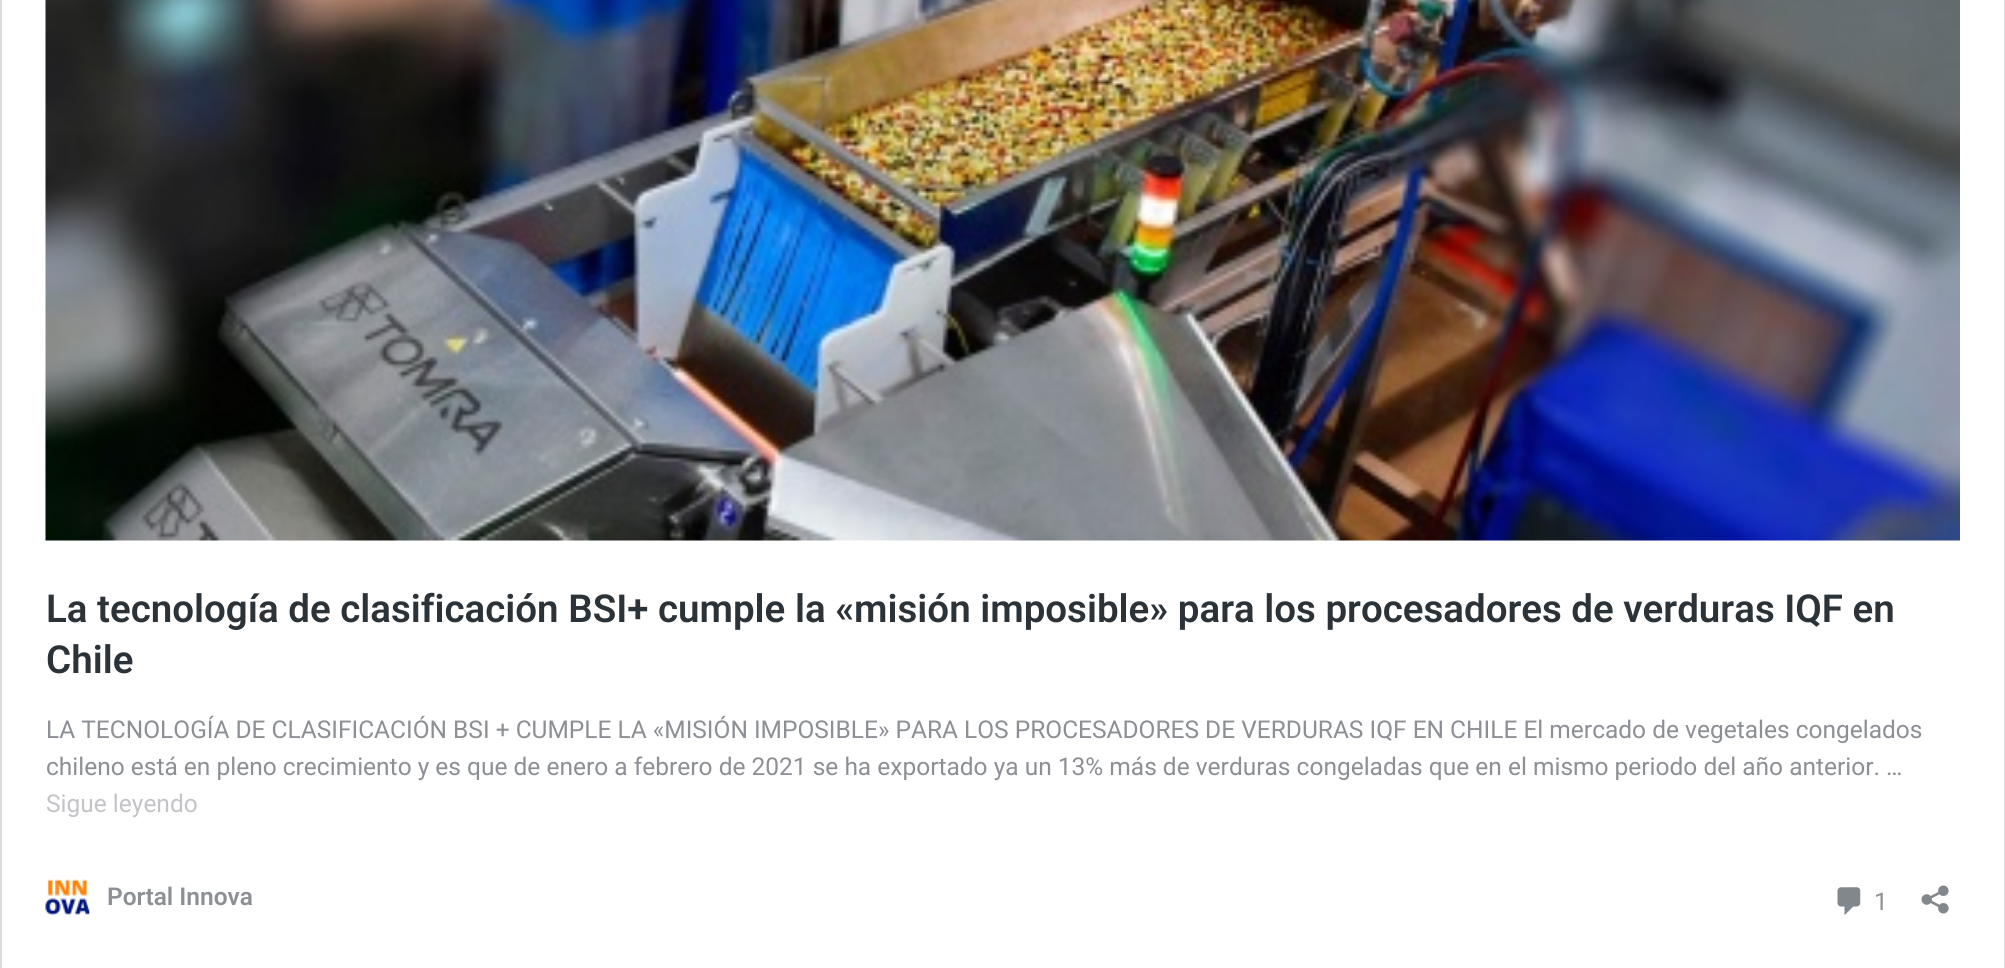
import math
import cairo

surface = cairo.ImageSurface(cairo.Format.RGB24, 2005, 968)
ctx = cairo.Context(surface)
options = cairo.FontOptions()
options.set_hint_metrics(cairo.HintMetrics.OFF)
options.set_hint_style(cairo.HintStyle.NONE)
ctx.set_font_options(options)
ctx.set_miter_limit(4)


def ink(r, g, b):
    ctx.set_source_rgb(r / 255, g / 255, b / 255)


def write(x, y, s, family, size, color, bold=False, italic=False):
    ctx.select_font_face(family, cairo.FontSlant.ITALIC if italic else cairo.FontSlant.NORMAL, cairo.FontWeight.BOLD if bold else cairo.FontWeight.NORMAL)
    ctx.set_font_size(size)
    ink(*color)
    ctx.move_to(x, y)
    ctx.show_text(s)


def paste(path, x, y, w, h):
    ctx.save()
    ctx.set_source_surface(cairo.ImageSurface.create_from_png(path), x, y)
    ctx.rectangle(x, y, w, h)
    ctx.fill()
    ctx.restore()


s1 = dict(family="Roboto SemiBold", size=38.5, color=(44, 51, 56))
s2 = dict(family="Roboto", size=24.5, color=(140, 143, 148))
s3 = dict(family="Roboto", size=24.5, color=(195, 196, 199))
s4 = dict(family="Roboto SemiBold", size=24.5, color=(140, 143, 148))

ink(255, 255, 255)
ctx.paint()
ctx.rectangle(1, -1, 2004, 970)
ink(220, 220, 222)
ctx.stroke()
paste("pic1.png", 45, 0, 1915, 541)
write(46, 622, "La tecnología de clasificación BSI+ cumple la «misión imposible» para los procesadores de verduras IQF en", **s1)
write(46, 673, "Chile", **s1)
write(46, 738, "LA TECNOLOGÍA DE CLASIFICACIÓN BSI + CUMPLE LA «MISIÓN IMPOSIBLE» PARA LOS PROCESADORES DE VERDURAS IQF EN CHILE El mercado de vegetales congelados", **s2)
write(46, 775, "chileno está en pleno crecimiento y es que de enero a febrero de 2021 se ha exportado ya un 13% más de verduras congeladas que en el mismo periodo del año anterior. …", **s2)
write(46, 812, "Sigue leyendo", **s3)
paste("pic2.png", 45, 879, 45, 36)
write(107, 905, "Portal Innova", **s4)
paste("pic3.png", 1837, 887, 24, 28)
write(1874, 910, "1", **s2)
paste("pic4.png", 1921, 885, 28, 29)
surface.write_to_png("screenshot.png")
